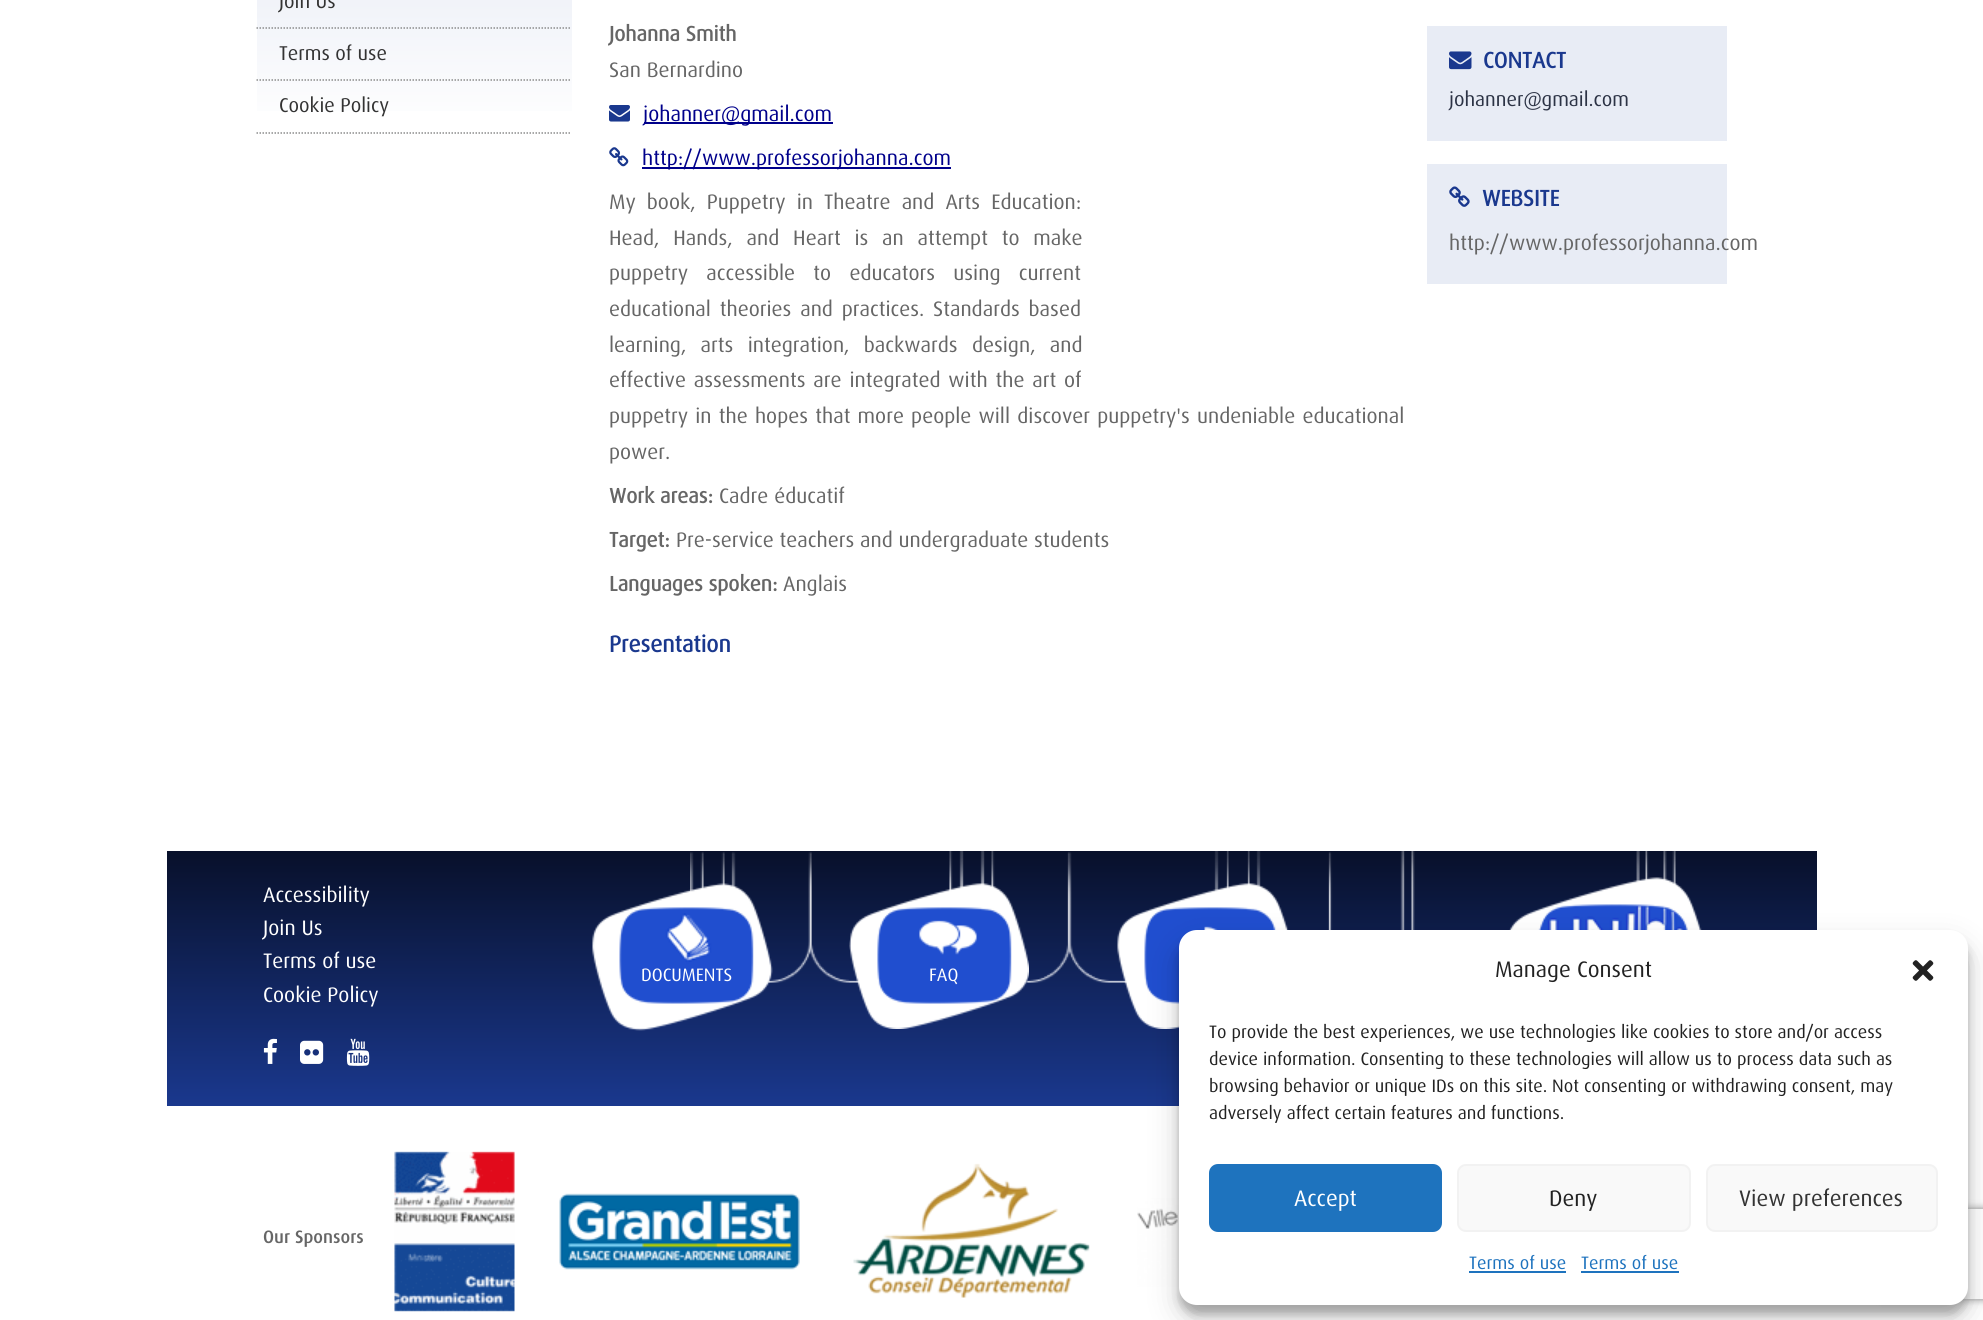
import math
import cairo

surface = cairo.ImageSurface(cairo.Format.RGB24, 1983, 1320)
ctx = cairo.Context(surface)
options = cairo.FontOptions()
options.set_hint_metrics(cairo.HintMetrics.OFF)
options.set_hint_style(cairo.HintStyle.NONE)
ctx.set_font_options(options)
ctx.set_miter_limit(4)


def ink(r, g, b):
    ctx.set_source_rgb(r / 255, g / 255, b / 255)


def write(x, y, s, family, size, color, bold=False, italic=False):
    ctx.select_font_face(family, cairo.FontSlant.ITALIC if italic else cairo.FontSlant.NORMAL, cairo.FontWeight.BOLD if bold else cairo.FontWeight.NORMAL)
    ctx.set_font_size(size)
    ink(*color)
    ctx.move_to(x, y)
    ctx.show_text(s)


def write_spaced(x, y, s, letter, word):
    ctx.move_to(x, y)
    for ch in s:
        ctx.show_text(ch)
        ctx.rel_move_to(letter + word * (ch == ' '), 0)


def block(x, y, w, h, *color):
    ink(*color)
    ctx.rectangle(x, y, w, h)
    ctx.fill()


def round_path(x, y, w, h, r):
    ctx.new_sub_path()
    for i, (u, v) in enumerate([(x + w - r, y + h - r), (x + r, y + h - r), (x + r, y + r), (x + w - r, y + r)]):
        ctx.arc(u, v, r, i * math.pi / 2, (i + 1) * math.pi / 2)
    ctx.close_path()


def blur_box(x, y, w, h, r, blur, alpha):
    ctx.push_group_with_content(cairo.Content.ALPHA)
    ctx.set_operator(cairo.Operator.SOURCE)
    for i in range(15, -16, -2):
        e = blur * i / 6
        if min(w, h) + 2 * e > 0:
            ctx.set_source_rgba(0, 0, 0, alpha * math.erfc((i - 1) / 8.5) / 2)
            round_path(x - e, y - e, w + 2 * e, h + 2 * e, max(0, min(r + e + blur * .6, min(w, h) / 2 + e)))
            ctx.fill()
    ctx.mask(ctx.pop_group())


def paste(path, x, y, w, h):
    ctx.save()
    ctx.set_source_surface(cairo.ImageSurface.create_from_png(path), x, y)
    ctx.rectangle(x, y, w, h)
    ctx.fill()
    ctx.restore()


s1 = dict(family="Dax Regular", size=20, color=(51, 51, 51))
s2 = dict(family="Dax Regular", size=21, color=(102, 102, 102), bold=True)
s3 = dict(family="Dax Regular", size=21, color=(102, 102, 102))
s4 = dict(family="Dax Regular", size=21, color=(0, 0, 139))
s5 = dict(family="Dax Regular", size=23, color=(26, 56, 142), bold=True)
s6 = dict(family="Dax Regular", size=22.5, color=(26, 56, 142), bold=True)
s7 = dict(family="Dax Regular", size=20, color=(44, 51, 69))
s8 = dict(family="Dax Regular", size=21, color=(255, 255, 255))
s9 = dict(family="Dax Regular", size=18, color=(255, 255, 255))
s10 = dict(family="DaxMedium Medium", size=18, color=(102, 102, 102))
s11 = dict(family="Dax Regular", size=22.5, color=(34, 34, 34))
s12 = dict(family="Dax Regular", size=18, color=(34, 34, 34))
s13 = dict(family="Dax Regular", size=22.5, color=(255, 255, 255))
s14 = dict(family="Dax Regular", size=22.5, color=(51, 51, 51))
s15 = dict(family="Dax Regular", size=18, color=(30, 115, 190))

ink(255, 255, 255)
ctx.paint()
gradient = cairo.LinearGradient(414, -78, 414, 134)
gradient.add_color_stop_rgba(0, 0.91, 0.925, 0.961, 1)
gradient.add_color_stop_rgba(1, 1, 1, 1, 1)
ctx.set_source(gradient)
ctx.rectangle(257, 0, 315, 111)
ctx.fill()
ctx.new_path()
ctx.move_to(256.5, 28)
ctx.line_to(571.5, 28)
ink(139, 140, 140)
ctx.set_line_width(1.5)
ctx.set_dash([1.5, 1.5])
ctx.stroke()
write(279, 8, "Join Us", **s1)
ctx.new_path()
ctx.move_to(256.5, 80)
ctx.line_to(571.5, 80)
ink(139, 140, 140)
ctx.stroke()
write(279, 60, "Terms of use", **s1)
ctx.new_path()
ctx.move_to(256.5, 133)
ctx.line_to(571.5, 133)
ink(139, 140, 140)
ctx.stroke()
write(279, 112, "Cookie Policy", **s1)
write(609, 41, "Johanna Smith", **s2)
write(609, 77, "San Bernardino", **s3)
paste("pic1.png", 609, 105, 21, 17)
block(644, 122, 189, 2, 0, 0, 139)
write(643, 121, "johanner@gmail.com", **s4)
paste("pic2.png", 609, 147, 20, 20)
block(642, 167, 309, 2, 0, 0, 139)
write(642, 165, "http://www.professorjohanna.com", **s4)
ink(102, 102, 102)
write_spaced(609, 209, "My book, Puppetry in Theatre and Arts Education:", 0, 5.25)
write_spaced(609, 245, "Head, Hands, and Heart is an attempt to make", 0, 8)
write_spaced(609, 280, "puppetry accessible to educators using current", 0, 12.5)
write_spaced(609, 316, "educational theories and practices.", 0, 3)
write_spaced(933, 316, "Standards based", 0, 3)
write_spaced(609, 352, "learning, arts integration, backwards design, and", 0, 8.5)
write_spaced(609, 387, "effective assessments are integrated with the art of", 0, 2)
write_spaced(609, 423, "puppetry in the hopes that more people will discover puppetry's undeniable educational", 0, 1.4)
write(609, 459, "power.", **s3)
write(609, 503, "Work areas:", **s2)
write(719, 503, "Cadre éducatif", **s3)
write(609, 547, "Target:", **s2)
write(676, 547, "Pre-service teachers and undergraduate students", **s3)
write(609, 591, "Languages spoken:", **s2)
write(783, 591, "Anglais", **s3)
write(609, 652, "Presentation", **s5)
block(1427, 26, 300, 115, 232, 236, 245)
paste("pic3.png", 1449, 51, 23, 19)
write(1483, 68, "CONTACT", **s6)
write(1449, 106, "johanner@gmail.com", **s7)
block(1427, 164, 300, 120, 232, 236, 245)
paste("pic4.png", 1449, 186, 21, 21)
write(1482, 206, "WEBSITE", **s6)
write(1449, 250, "http://www.professorjohanna.com", **s3)
gradient = cairo.LinearGradient(992, 850, 992, 1106)
gradient.add_color_stop_rgba(0, 0.031, 0.063, 0.165, 1)
gradient.add_color_stop_rgba(1, 0.102, 0.22, 0.557, 1)
ctx.set_source(gradient)
ctx.rectangle(167, 851, 1650, 255)
ctx.fill()
write(263, 902, "Accessibility", **s8)
write(263, 935, "Join Us", **s8)
write(263, 968, "Terms of use", **s8)
write(263, 1002, "Cookie Policy", **s8)
paste("pic5.png", 263, 1038, 14, 26)
paste("pic6.png", 300, 1040, 24, 24)
paste("pic7.png", 346, 1038, 24, 28)
paste("pic8.png", 690, 851, 986, 132)
paste("pic9.png", 592, 883, 181, 148)
write(641, 981, "DOCUMENTS", **s9)
paste("pic10.png", 849, 883, 180, 146)
write(929, 981, "FAQ", **s9)
paste("pic11.png", 1117, 883, 172, 146)
paste("pic12.png", 1509, 877, 193, 53)
write(263, 1243, "Our Sponsors", **s10)
paste("pic13.png", 394, 1151, 121, 161)
paste("pic14.png", 559, 1193, 241, 77)
paste("pic15.png", 853, 1163, 237, 135)
paste("pic16.png", 1137, 1198, 42, 89)
ink(0, 0, 0)
blur_box(1179, 939, 789, 375, 18, 4.5, 0.23)
blur_box(1179, 945, 789, 375, 18, 15, 0.19)
ctx.save()
ctx.set_fill_rule(cairo.FillRule.EVEN_ODD)
ctx.new_path()
ctx.move_to(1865, 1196)
ctx.line_to(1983, 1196)
ctx.line_to(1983, 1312)
ctx.line_to(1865, 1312)
ctx.close_path()
ctx.move_to(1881, 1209)
ctx.line_to(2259, 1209)
ctx.curve_to(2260.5, 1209, 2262, 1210.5, 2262, 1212)
ctx.line_to(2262, 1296)
ctx.curve_to(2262, 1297.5, 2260.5, 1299, 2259, 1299)
ctx.line_to(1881, 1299)
ctx.curve_to(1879.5, 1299, 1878, 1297.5, 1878, 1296)
ctx.line_to(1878, 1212)
ctx.curve_to(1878, 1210.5, 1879.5, 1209, 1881, 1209)
ctx.close_path()
ctx.clip()
ink(128, 128, 128)
blur_box(1878, 1209, 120, 90, 3, 4, 1)
ctx.restore()
ink(255, 255, 255)
round_path(1179, 930, 789, 375, 18)
ctx.fill()
write(1495, 977, "Manage Consent", **s11)
paste("pic17.png", 1912, 960, 22, 21)
write(1209, 1038, "To provide the best experiences, we use technologies like cookies to store and/or access", **s12)
write(1209, 1065, "device information. Consenting to these technologies will allow us to process data such as", **s12)
write(1209, 1092, "browsing behavior or unique IDs on this site. Not consenting or withdrawing consent, may", **s12)
write(1209, 1119, "adversely affect certain features and functions.", **s12)
ink(30, 115, 190)
round_path(1210, 1165, 231, 66, 8)
ctx.fill_preserve()
ctx.set_line_width(2)
ctx.set_dash([])
ctx.stroke()
write(1294, 1206, "Accept", **s13)
ink(249, 249, 249)
round_path(1458, 1165, 232, 66, 8)
ctx.fill_preserve()
ink(242, 242, 242)
ctx.stroke()
write(1549, 1206, "Deny", **s11)
ink(249, 249, 249)
round_path(1707, 1165, 230, 66, 8)
ctx.fill_preserve()
ink(242, 242, 242)
ctx.stroke()
write(1739, 1206, "View preferences", **s14)
write(1469, 1269, "Terms of use", **s15)
block(1469, 1271, 97, 2, 30, 115, 190)
write(1581, 1269, "Terms of use", **s15)
block(1581, 1271, 98, 2, 30, 115, 190)
surface.write_to_png("screenshot.png")
